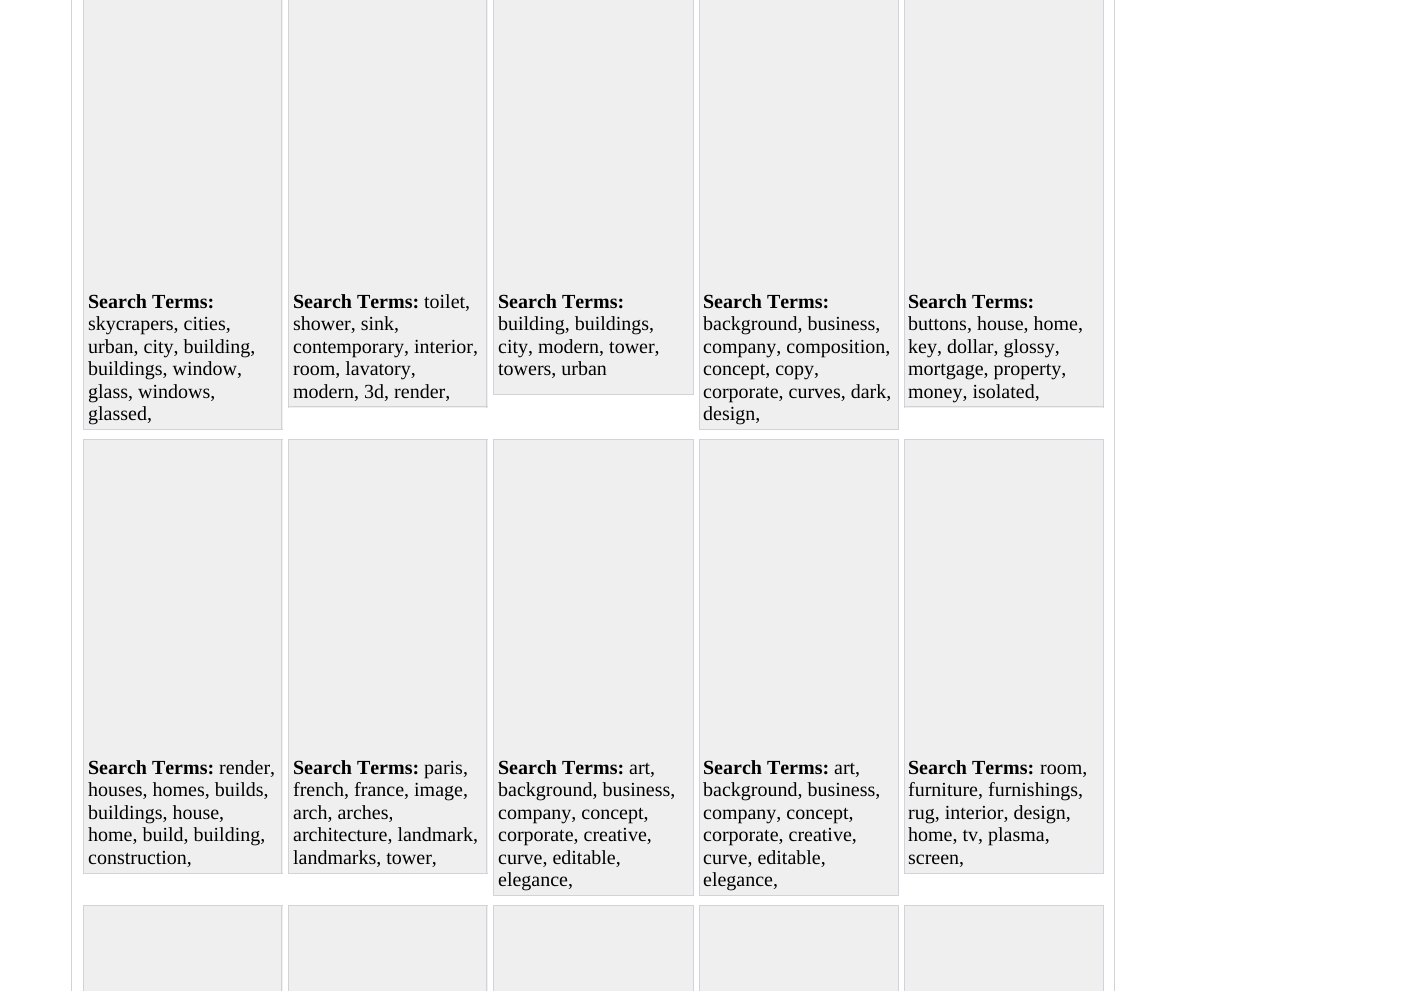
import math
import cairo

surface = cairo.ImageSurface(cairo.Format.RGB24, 1405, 991)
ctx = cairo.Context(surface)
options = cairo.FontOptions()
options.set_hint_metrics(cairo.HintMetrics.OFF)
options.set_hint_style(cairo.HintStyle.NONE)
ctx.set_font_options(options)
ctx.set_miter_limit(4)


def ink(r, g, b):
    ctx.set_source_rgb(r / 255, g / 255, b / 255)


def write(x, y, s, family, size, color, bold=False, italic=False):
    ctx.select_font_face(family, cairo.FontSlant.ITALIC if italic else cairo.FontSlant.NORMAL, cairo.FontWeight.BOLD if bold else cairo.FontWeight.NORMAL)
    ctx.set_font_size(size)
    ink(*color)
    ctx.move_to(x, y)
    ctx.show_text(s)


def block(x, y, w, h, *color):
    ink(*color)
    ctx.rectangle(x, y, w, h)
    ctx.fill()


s1 = dict(family="Liberation Serif", size=20, color=(0, 0, 0), bold=True)
s2 = dict(family="Liberation Serif", size=20, color=(0, 0, 0))

ink(255, 255, 255)
ctx.paint()
block(1114, 0, 1, 991, 210, 210, 216)
block(71, 0, 1, 991, 210, 210, 216)
block(84, 0, 199, 429, 239, 239, 239)
block(281, 0, 1, 430, 210, 210, 216)
block(83, 429, 200, 1, 210, 210, 216)
block(83, 0, 1, 430, 210, 210, 216)
write(88, 308, "Search Terms:", **s1)
write(88, 330, "skycrapers, cities,", **s2)
write(88, 353, "urban, city, building,", **s2)
write(88, 375, "buildings, window,", **s2)
write(88, 398, "glass, windows,", **s2)
write(88, 420, "glassed,", **s2)
block(289, 0, 199, 408, 239, 239, 239)
block(486, 0, 1, 408, 210, 210, 216)
block(288, 406, 200, 1, 210, 210, 216)
block(288, 0, 1, 408, 210, 210, 216)
write(293, 308, "Search Terms:", **s1)
write(424, 308, "toilet,", **s2)
write(293, 330, "shower, sink,", **s2)
write(293, 353, "contemporary, interior,", **s2)
write(293, 375, "room, lavatory,", **s2)
write(293, 398, "modern, 3d, render,", **s2)
block(693, 0, 1, 395, 210, 210, 216)
block(493, 394, 201, 1, 210, 210, 216)
block(493, 0, 1, 395, 210, 210, 216)
block(494, 0, 199, 394, 239, 239, 239)
write(498, 308, "Search Terms:", **s1)
write(498, 330, "building, buildings,", **s2)
write(498, 353, "city, modern, tower,", **s2)
write(498, 375, "towers, urban", **s2)
block(898, 0, 1, 430, 210, 210, 216)
block(699, 429, 200, 1, 210, 210, 216)
block(699, 0, 1, 430, 210, 210, 216)
block(700, 0, 198, 429, 239, 239, 239)
write(703, 308, "Search Terms:", **s1)
write(703, 330, "background, business,", **s2)
write(703, 353, "company, composition,", **s2)
write(703, 375, "concept, copy,", **s2)
write(703, 398, "corporate, curves, dark,", **s2)
write(703, 420, "design,", **s2)
block(1103, 0, 1, 408, 210, 210, 216)
block(905, 0, 198, 408, 239, 239, 239)
block(904, 406, 200, 1, 210, 210, 216)
block(904, 0, 1, 408, 210, 210, 216)
write(908, 308, "Search Terms:", **s1)
write(908, 330, "buttons, house, home,", **s2)
write(908, 353, "key, dollar, glossy,", **s2)
write(908, 375, "mortgage, property,", **s2)
write(908, 398, "money, isolated,", **s2)
block(83, 439, 200, 1, 210, 210, 216)
block(84, 440, 199, 433, 239, 239, 239)
block(281, 439, 1, 435, 210, 210, 216)
block(83, 873, 200, 1, 210, 210, 216)
block(83, 439, 1, 435, 210, 210, 216)
write(88, 774, "Search Terms:", **s1)
write(219, 774, "render,", **s2)
write(88, 796, "houses, homes, builds,", **s2)
write(88, 819, "buildings, house,", **s2)
write(88, 841, "home, build, building,", **s2)
write(88, 864, "construction,", **s2)
block(288, 439, 200, 1, 210, 210, 216)
block(289, 440, 199, 433, 239, 239, 239)
block(486, 439, 1, 435, 210, 210, 216)
block(288, 873, 200, 1, 210, 210, 216)
block(288, 439, 1, 435, 210, 210, 216)
write(293, 774, "Search Terms:", **s1)
write(424, 774, "paris,", **s2)
write(293, 796, "french, france, image,", **s2)
write(293, 819, "arch, arches,", **s2)
write(293, 841, "architecture, landmark,", **s2)
write(293, 864, "landmarks, tower,", **s2)
block(493, 439, 201, 1, 210, 210, 216)
block(693, 439, 1, 457, 210, 210, 216)
block(493, 895, 201, 1, 210, 210, 216)
block(493, 439, 1, 457, 210, 210, 216)
block(494, 440, 199, 455, 239, 239, 239)
write(498, 774, "Search Terms:", **s1)
write(629, 774, "art,", **s2)
write(498, 796, "background, business,", **s2)
write(498, 819, "company, concept,", **s2)
write(498, 841, "corporate, creative,", **s2)
write(498, 864, "curve, editable,", **s2)
write(498, 886, "elegance,", **s2)
block(699, 439, 200, 1, 210, 210, 216)
block(898, 439, 1, 457, 210, 210, 216)
block(699, 895, 200, 1, 210, 210, 216)
block(699, 439, 1, 457, 210, 210, 216)
block(700, 440, 198, 455, 239, 239, 239)
write(703, 774, "Search Terms:", **s1)
write(834, 774, "art,", **s2)
write(703, 796, "background, business,", **s2)
write(703, 819, "company, concept,", **s2)
write(703, 841, "corporate, creative,", **s2)
write(703, 864, "curve, editable,", **s2)
write(703, 886, "elegance,", **s2)
block(904, 439, 200, 1, 210, 210, 216)
block(1103, 439, 1, 435, 210, 210, 216)
block(904, 873, 200, 1, 210, 210, 216)
block(904, 439, 1, 435, 210, 210, 216)
block(905, 440, 198, 433, 239, 239, 239)
write(908, 774, "Search Terms:", **s1)
write(1040, 774, "room,", **s2)
write(908, 796, "furniture, furnishings,", **s2)
write(908, 819, "rug, interior, design,", **s2)
write(908, 841, "home, tv, plasma,", **s2)
write(908, 864, "screen,", **s2)
block(83, 905, 200, 1, 210, 210, 216)
block(84, 906, 199, 85, 239, 239, 239)
block(281, 905, 1, 86, 210, 210, 216)
block(83, 905, 1, 86, 210, 210, 216)
block(288, 905, 200, 1, 210, 210, 216)
block(289, 906, 199, 85, 239, 239, 239)
block(486, 905, 1, 86, 210, 210, 216)
block(288, 905, 1, 86, 210, 210, 216)
block(493, 905, 201, 1, 210, 210, 216)
block(693, 905, 1, 86, 210, 210, 216)
block(493, 905, 1, 86, 210, 210, 216)
block(494, 906, 199, 85, 239, 239, 239)
block(699, 905, 200, 1, 210, 210, 216)
block(898, 905, 1, 86, 210, 210, 216)
block(699, 905, 1, 86, 210, 210, 216)
block(700, 906, 198, 85, 239, 239, 239)
block(904, 905, 200, 1, 210, 210, 216)
block(1103, 905, 1, 86, 210, 210, 216)
block(904, 905, 1, 86, 210, 210, 216)
block(905, 906, 198, 85, 239, 239, 239)
surface.write_to_png("screenshot.png")
